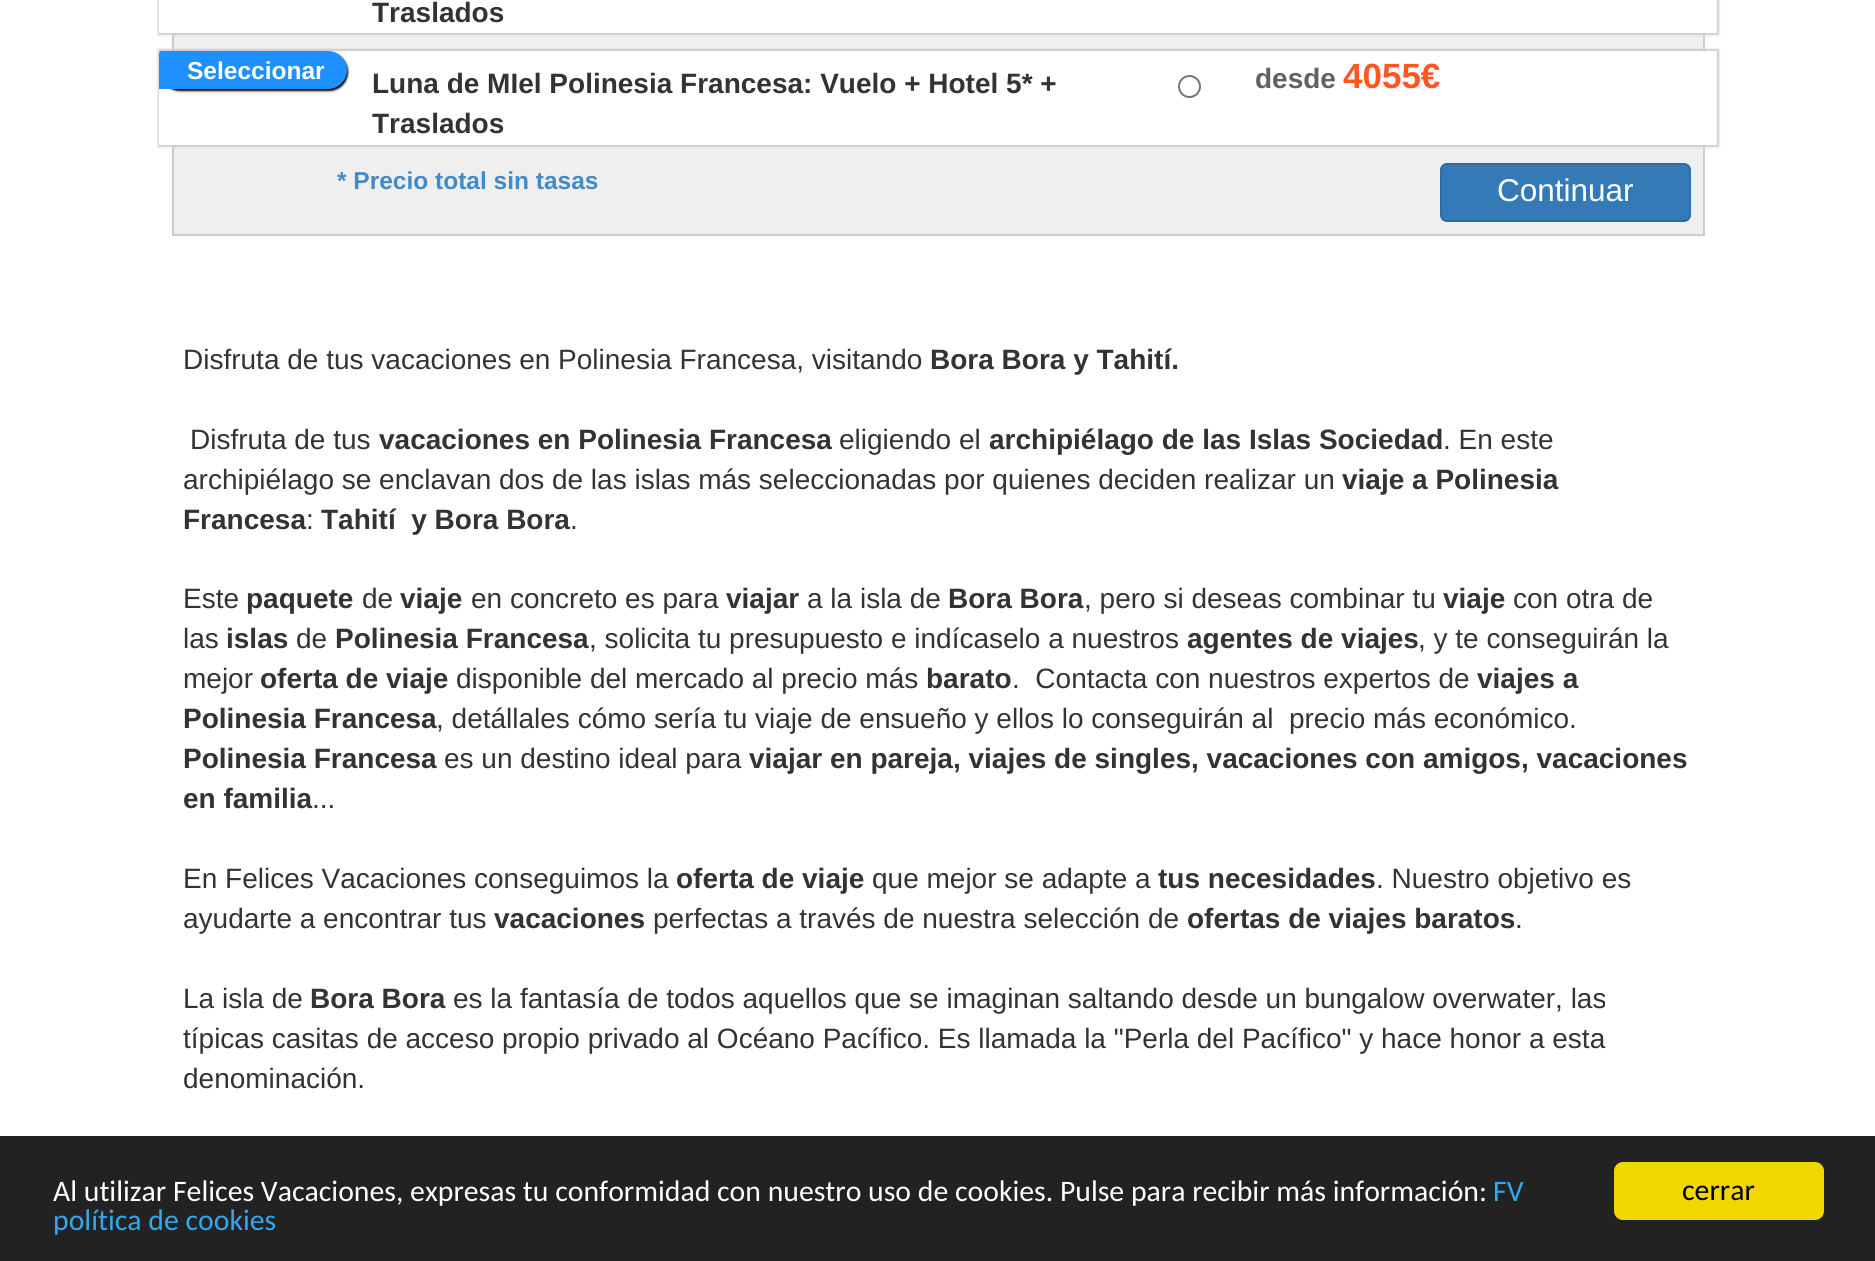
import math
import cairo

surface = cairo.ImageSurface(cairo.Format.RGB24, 1875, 1261)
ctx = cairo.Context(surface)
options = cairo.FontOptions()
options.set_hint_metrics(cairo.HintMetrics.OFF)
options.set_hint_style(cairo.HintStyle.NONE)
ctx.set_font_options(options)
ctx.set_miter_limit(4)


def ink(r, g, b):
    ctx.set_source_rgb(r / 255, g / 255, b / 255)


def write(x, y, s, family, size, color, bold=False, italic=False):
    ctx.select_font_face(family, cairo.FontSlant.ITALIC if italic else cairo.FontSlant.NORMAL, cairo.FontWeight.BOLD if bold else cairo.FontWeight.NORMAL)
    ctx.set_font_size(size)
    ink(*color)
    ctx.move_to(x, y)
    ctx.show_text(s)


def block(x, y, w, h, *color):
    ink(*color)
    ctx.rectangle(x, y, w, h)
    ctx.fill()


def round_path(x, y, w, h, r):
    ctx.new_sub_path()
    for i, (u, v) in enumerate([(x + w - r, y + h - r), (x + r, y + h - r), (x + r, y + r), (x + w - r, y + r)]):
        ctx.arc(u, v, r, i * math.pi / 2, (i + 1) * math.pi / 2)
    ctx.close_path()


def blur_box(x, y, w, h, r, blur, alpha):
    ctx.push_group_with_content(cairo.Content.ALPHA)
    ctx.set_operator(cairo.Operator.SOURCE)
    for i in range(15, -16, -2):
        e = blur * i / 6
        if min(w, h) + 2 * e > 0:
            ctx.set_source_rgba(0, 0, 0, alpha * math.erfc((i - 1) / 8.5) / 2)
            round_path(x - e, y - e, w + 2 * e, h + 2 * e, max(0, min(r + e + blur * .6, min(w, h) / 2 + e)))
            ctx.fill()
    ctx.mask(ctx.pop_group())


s1 = dict(family="Liberation Sans", size=28, color=(51, 51, 51), bold=True)
s2 = dict(family="Liberation Sans", size=24.5, color=(255, 255, 255), bold=True)
s3 = dict(family="Liberation Sans", size=28, color=(97, 97, 97), bold=True)
s4 = dict(family="Liberation Sans", size=35, color=(255, 87, 34), bold=True)
s5 = dict(family="Liberation Sans", size=24.5, color=(66, 139, 202), bold=True)
s6 = dict(family="Liberation Sans", size=31.5, color=(255, 255, 255))
s7 = dict(family="Liberation Sans", size=28, color=(51, 51, 51))
s8 = dict(family="Carlito", size=29.75, color=(255, 255, 255))
s9 = dict(family="Carlito", size=29.75, color=(49, 168, 240))
s10 = dict(family="Carlito", size=29.75, color=(0, 0, 0))

ink(255, 255, 255)
ctx.paint()
block(174, 33, 1529, 201, 239, 239, 239)
ctx.rectangle(173, -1, 1531, 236)
ink(204, 204, 204)
ctx.stroke()
ink(204, 204, 204)
blur_box(158, -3, 1561, 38, 0, 1, 1)
block(159, 0, 1558, 33, 255, 255, 255)
write(372, 22, "Traslados", **s1)
ink(204, 204, 204)
blur_box(158, 49, 1561, 98, 0, 1, 1)
block(159, 51, 1558, 94, 255, 255, 255)
ink(0, 0, 0)
blur_box(161, 53, 187, 38, 19, 1, 1)
ink(30, 144, 255)
ctx.new_path()
ctx.move_to(161, 52)
ctx.line_to(328, 52)
ctx.curve_to(338, 52, 346, 60, 346, 70)
ctx.curve_to(346, 80, 338, 88, 328, 88)
ctx.line_to(160, 88)
ctx.line_to(160, 53)
ctx.curve_to(160, 52.5, 160.5, 52, 161, 52)
ctx.close_path()
ctx.fill_preserve()
ctx.stroke()
write(187, 79, "Seleccionar", **s2)
write(372, 93, "Luna de MIel Polinesia Francesa: Vuelo + Hotel 5* +", **s1)
write(372, 133, "Traslados", **s1)
ctx.new_path()
ctx.arc(1189.5, 86.5, 10.5, 0, 2 * math.pi)
ink(118, 118, 118)
ctx.stroke()
write(1255, 88, "desde", **s3)
write(1343, 88, "4055€", **s4)
write(337, 189, "* Precio total sin tasas", **s5)
ink(51, 122, 183)
round_path(1441, 164, 249, 57, 6)
ctx.fill_preserve()
ink(46, 109, 164)
ctx.stroke()
write(1497, 201, "Continuar", **s6)
write(183, 369, "Disfruta de tus vacaciones en Polinesia Francesa, visitando", **s7)
write(930, 369, "Bora Bora y Tahití.", **s1)
write(190, 449, "Disfruta de tus", **s7)
write(379, 449, "vacaciones en Polinesia Francesa", **s1)
write(839, 449, "eligiendo el", **s7)
write(989, 449, "archipiélago de las Islas Sociedad", **s1)
write(1443, 449, ". En este", **s7)
write(183, 489, "archipiélago se enclavan dos de las islas más seleccionadas por quienes deciden realizar un", **s7)
write(1342, 489, "viaje a Polinesia", **s1)
write(183, 529, "Francesa", **s1)
write(306, 529, ":", **s7)
write(321, 529, "Tahití  y Bora Bora", **s1)
write(570, 529, ".", **s7)
write(183, 608, "Este", **s7)
write(246, 608, "paquete", **s1)
write(362, 608, "de", **s7)
write(400, 608, "viaje", **s1)
write(471, 608, "en concreto es para", **s7)
write(726, 608, "viajar", **s1)
write(807, 608, "a la isla de", **s7)
write(948, 608, "Bora Bora", **s1)
write(1084, 608, ", pero si deseas combinar tu", **s7)
write(1443, 608, "viaje", **s1)
write(1513, 608, "con otra de", **s7)
write(183, 648, "las", **s7)
write(226, 648, "islas", **s1)
write(296, 648, "de", **s7)
write(335, 648, "Polinesia Francesa", **s1)
write(589, 648, ", solicita tu presupuesto e indícaselo a nuestros", **s7)
write(1187, 648, "agentes de viajes", **s1)
write(1418, 648, ", y te conseguirán la", **s7)
write(183, 688, "mejor", **s7)
write(260, 688, "oferta de viaje", **s1)
write(456, 688, "disponible del mercado al precio más", **s7)
write(926, 688, "barato", **s1)
write(1012, 688, ".  Contacta con nuestros expertos de", **s7)
write(1477, 688, "viajes a", **s1)
write(183, 728, "Polinesia Francesa", **s1)
write(436, 728, ", detállales cómo sería tu viaje de ensueño y ellos lo conseguirán al  precio más económico.", **s7)
write(183, 768, "Polinesia Francesa", **s1)
write(444, 768, "es un destino ideal para", **s7)
write(749, 768, "viajar en pareja, viajes de singles, vacaciones con amigos, vacaciones", **s1)
write(183, 808, "en familia", **s1)
write(312, 808, "...", **s7)
write(183, 888, "En Felices Vacaciones conseguimos la", **s7)
write(676, 888, "oferta de viaje", **s1)
write(872, 888, "que mejor se adapte a", **s7)
write(1158, 888, "tus necesidades", **s1)
write(1376, 888, ". Nuestro objetivo es", **s7)
write(183, 928, "ayudarte a encontrar tus", **s7)
write(494, 928, "vacaciones", **s1)
write(653, 928, "perfectas a través de nuestra selección de", **s7)
write(1187, 928, "ofertas de viajes baratos", **s1)
write(1515, 928, ".", **s7)
write(183, 1008, "La isla de", **s7)
write(310, 1008, "Bora Bora", **s1)
write(453, 1008, "es la fantasía de todos aquellos que se imaginan saltando desde un bungalow overwater, las", **s7)
write(183, 1048, "típicas casitas de acceso propio privado al Océano Pacífico. Es llamada la \"Perla del Pacífico\" y hace honor a esta", **s7)
write(183, 1088, "denominación.", **s7)
block(0, 1136, 1875, 125, 34, 34, 34)
write(53, 1201, "Al utilizar Felices Vacaciones, expresas tu conformidad con nuestro uso de cookies. Pulse para recibir más información:", **s8)
write(1493, 1201, "FV", **s9)
write(53, 1230, "política de cookies", **s9)
ink(241, 214, 0)
round_path(1614, 1162, 210, 58, 9)
ctx.fill()
write(1682, 1200, "cerrar", **s10)
surface.write_to_png("screenshot.png")
